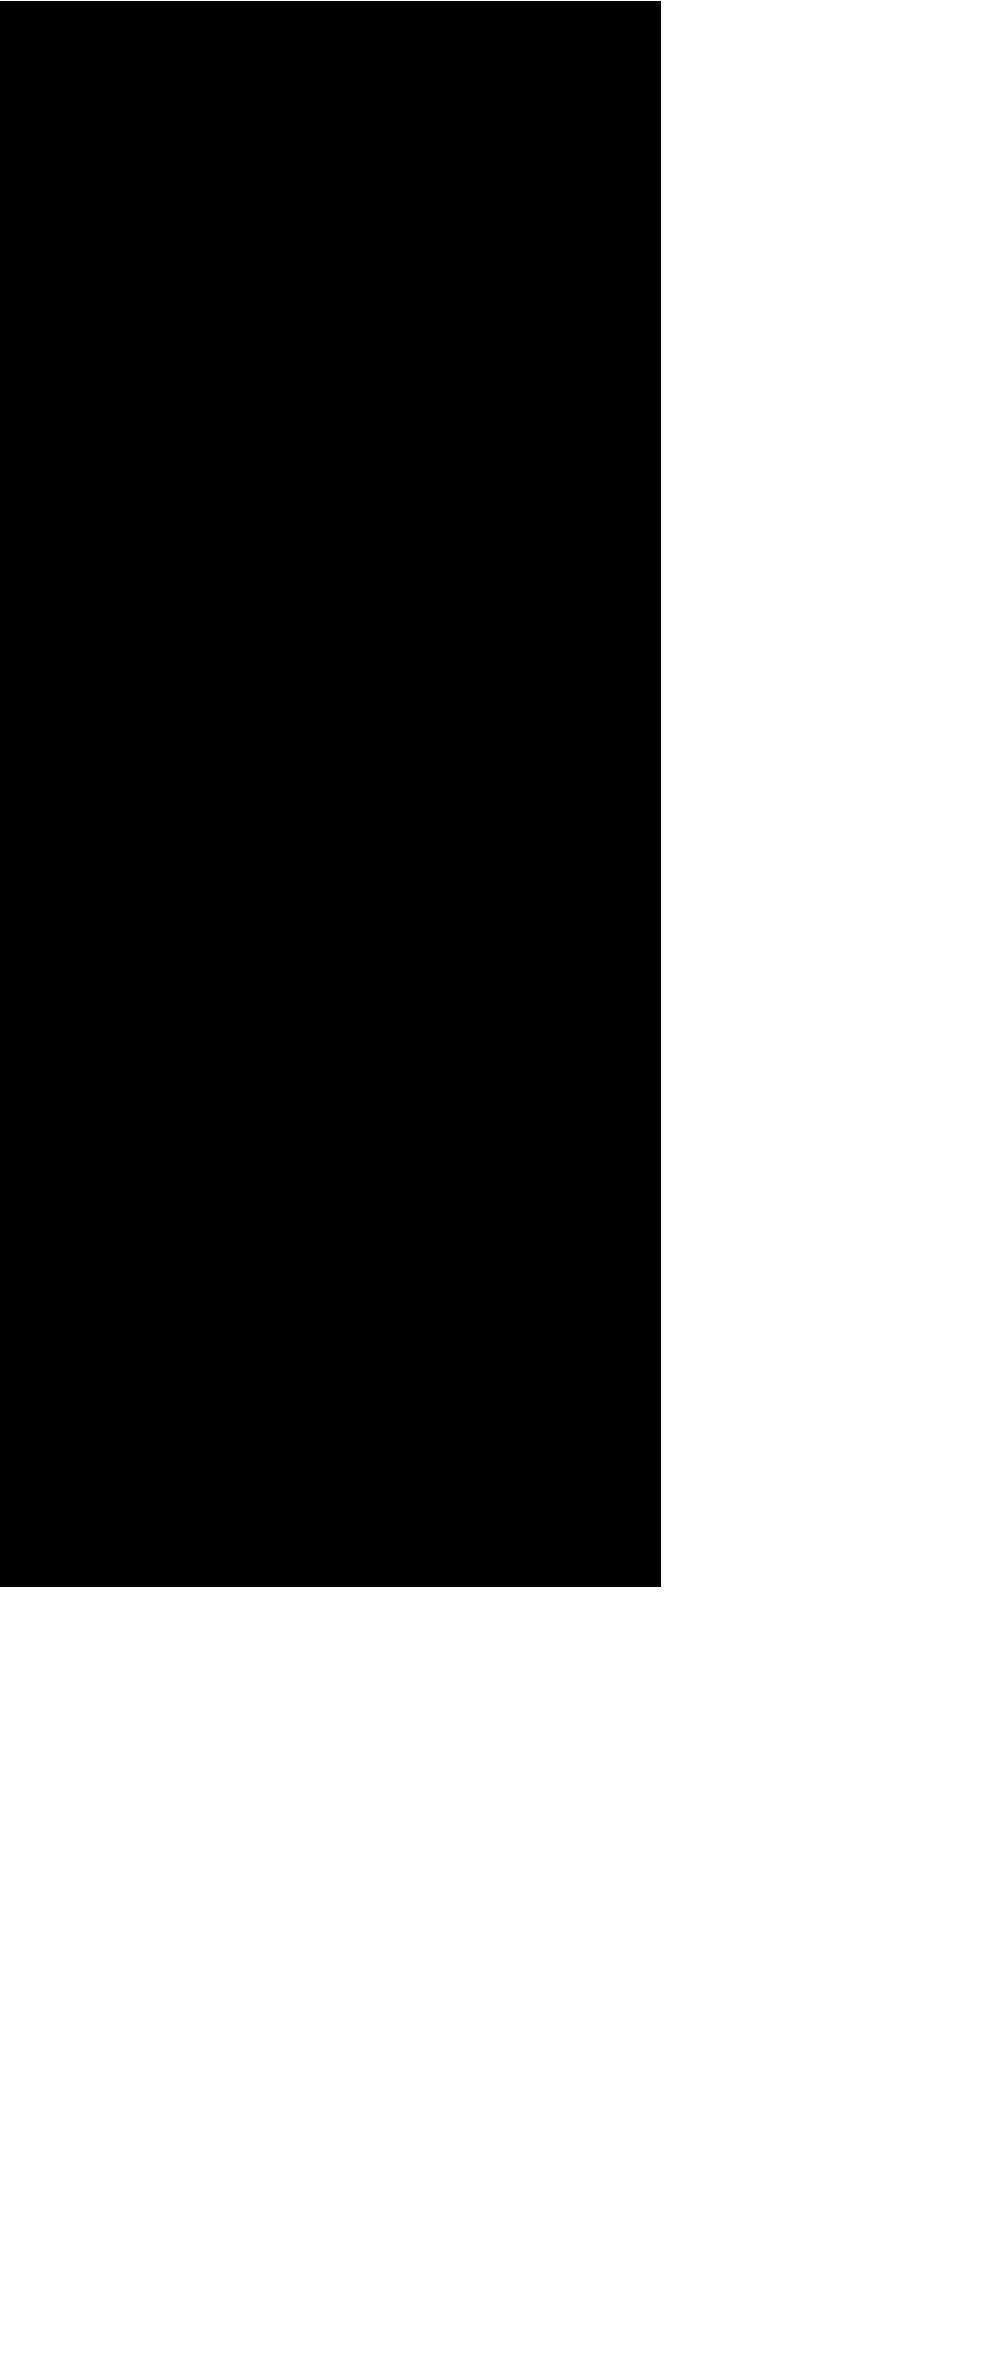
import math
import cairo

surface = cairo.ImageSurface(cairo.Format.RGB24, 991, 2378)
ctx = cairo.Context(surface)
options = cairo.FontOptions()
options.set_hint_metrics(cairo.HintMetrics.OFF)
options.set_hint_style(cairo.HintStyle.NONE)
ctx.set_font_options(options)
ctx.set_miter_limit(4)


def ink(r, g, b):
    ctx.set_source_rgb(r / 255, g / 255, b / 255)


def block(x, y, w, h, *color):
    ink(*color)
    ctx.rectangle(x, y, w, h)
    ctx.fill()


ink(255, 255, 255)
ctx.paint()
block(0, 1, 661, 1586, 0, 0, 0)
surface.write_to_png("screenshot.png")
